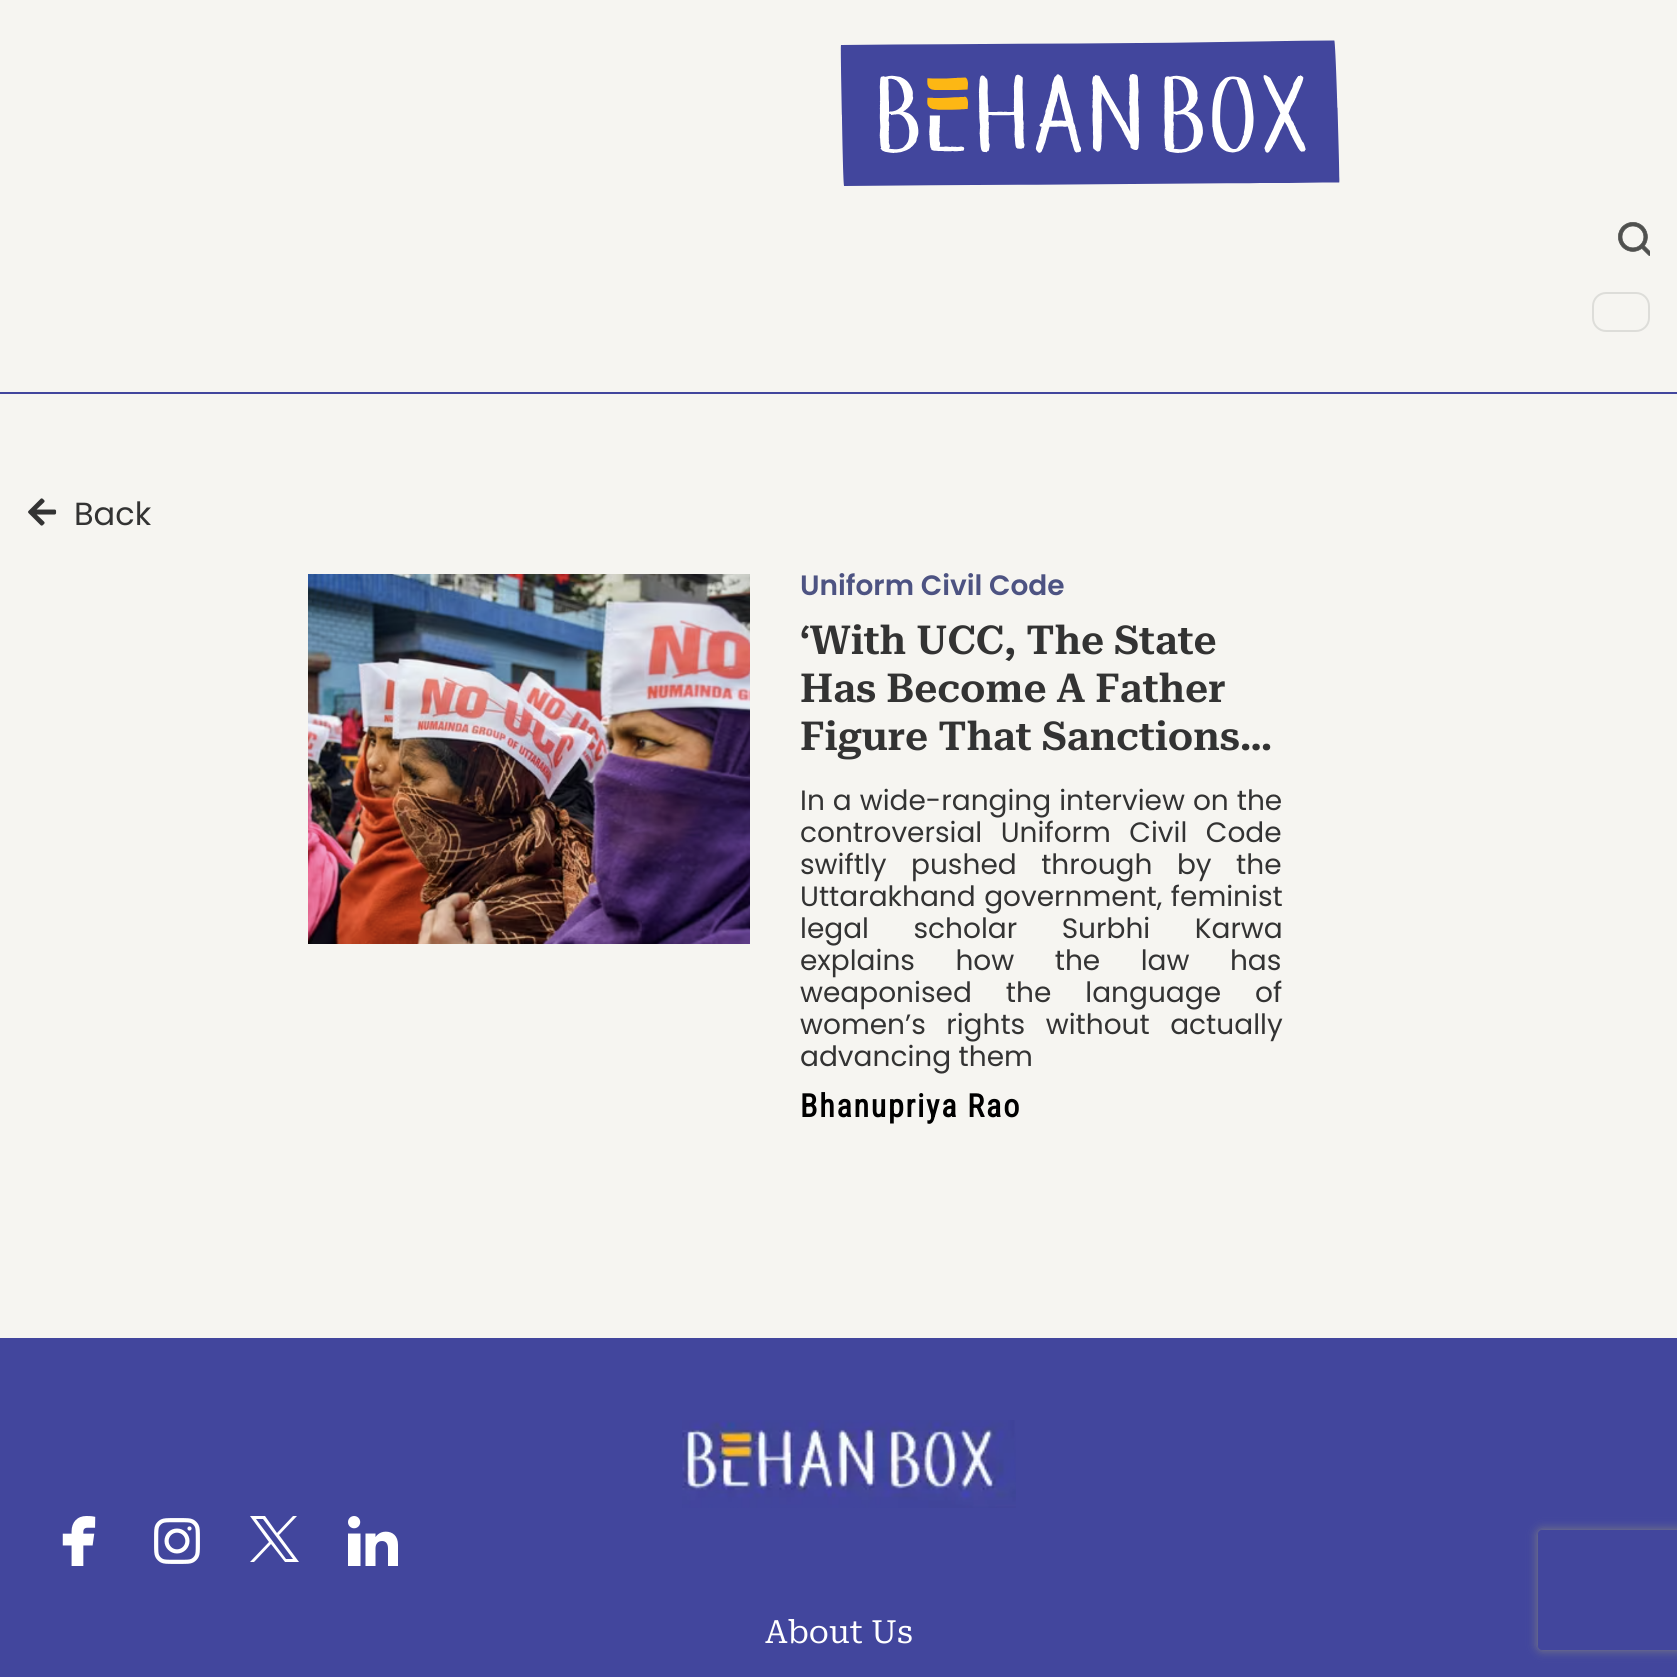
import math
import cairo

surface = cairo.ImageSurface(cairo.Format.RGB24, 1677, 1677)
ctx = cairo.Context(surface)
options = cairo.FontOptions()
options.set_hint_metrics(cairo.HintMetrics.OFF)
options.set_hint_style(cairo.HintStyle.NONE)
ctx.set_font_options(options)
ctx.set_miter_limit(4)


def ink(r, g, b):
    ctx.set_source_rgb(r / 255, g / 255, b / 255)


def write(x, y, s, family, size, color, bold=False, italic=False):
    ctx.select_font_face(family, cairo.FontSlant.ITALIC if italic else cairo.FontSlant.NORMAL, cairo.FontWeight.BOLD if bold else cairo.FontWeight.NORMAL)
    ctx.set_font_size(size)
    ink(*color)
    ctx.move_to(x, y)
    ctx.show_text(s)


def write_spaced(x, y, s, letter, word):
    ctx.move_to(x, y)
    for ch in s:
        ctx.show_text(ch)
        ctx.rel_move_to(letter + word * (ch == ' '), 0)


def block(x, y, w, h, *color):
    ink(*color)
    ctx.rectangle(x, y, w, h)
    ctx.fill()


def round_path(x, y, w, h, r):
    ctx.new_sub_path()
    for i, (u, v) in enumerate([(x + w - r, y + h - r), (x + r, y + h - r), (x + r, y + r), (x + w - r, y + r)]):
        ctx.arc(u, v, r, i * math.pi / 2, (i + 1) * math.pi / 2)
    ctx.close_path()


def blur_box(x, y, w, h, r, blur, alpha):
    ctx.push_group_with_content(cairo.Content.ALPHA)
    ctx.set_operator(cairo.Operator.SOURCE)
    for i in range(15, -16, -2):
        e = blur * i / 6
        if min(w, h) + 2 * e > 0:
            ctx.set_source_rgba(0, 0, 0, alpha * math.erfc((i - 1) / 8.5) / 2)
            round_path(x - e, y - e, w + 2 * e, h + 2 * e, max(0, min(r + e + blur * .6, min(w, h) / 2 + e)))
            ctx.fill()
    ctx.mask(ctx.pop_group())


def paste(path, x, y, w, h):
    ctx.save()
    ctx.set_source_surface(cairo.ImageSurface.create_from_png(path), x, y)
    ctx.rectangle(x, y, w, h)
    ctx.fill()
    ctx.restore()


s1 = dict(family="Poppins", size=32, color=(51, 51, 51))
s2 = dict(family="Poppins SemiBold", size=28, color=(77, 83, 130))
s3 = dict(family="Roboto Serif SemiBold", size=40, color=(51, 51, 51))
s4 = dict(family="Poppins", size=28, color=(51, 51, 51))
s5 = dict(family="Roboto Serif", size=32, color=(255, 255, 255))

ink(246, 245, 241)
ctx.paint()
block(0, 392, 1677, 2, 66, 70, 157)
paste("pic1.png", 840, 40, 500, 146)
paste("pic2.png", 1618, 222, 32, 34)
round_path(1593, 293, 56, 38, 13)
ink(221, 221, 217)
ctx.stroke()
paste("pic3.png", 28, 498, 29, 28)
write(74, 525, "Back", **s1)
paste("pic4.png", 308, 574, 442, 370)
write(800, 595, "Uniform Civil Code", **s2)
write(800, 654, "‘With UCC, The State", **s3)
write(800, 702, "Has Become A Father", **s3)
write(800, 750, "Figure That Sanctions…", **s3)
ctx.select_font_face("Poppins")
ctx.set_font_size(28)
write_spaced(800, 810, "In a wide-ranging interview on the", 0, 0.5)
write_spaced(800, 842, "controversial Uniform Civil Code", 0, 11)
write_spaced(800, 874, "swiftly pushed through by the", 0, 17)
write_spaced(800, 906, "Uttarakhand government, feminist", 0, 1)
write_spaced(800, 938, "legal scholar Surbhi Karwa", 0, 37)
write_spaced(800, 970, "explains how the law has", 0, 33)
write_spaced(800, 1002, "weaponised the language of", 0, 26.5)
write_spaced(800, 1034, "women’s rights without actually", 0, 13)
write(800, 1066, "advancing them", **s4)
ctx.select_font_face("Roboto Condensed", cairo.FontSlant.NORMAL, cairo.FontWeight.BOLD)
ctx.set_font_size(32)
ink(0, 0, 0)
write_spaced(800, 1117, "Bhanupriya Rao", 1.75, 0)
block(0, 1338, 1677, 339, 66, 70, 157)
paste("pic5.png", 682, 1420, 334, 88)
paste("pic6.png", 62, 1516, 34, 50)
paste("pic7.png", 154, 1518, 46, 46)
ink(255, 255, 255)
ctx.new_path()
ctx.move_to(250, 1516)
ctx.line_to(269, 1542)
ctx.line_to(250, 1562)
ctx.line_to(254, 1562)
ctx.line_to(271, 1544)
ctx.line_to(285, 1562)
ctx.line_to(299, 1562)
ctx.line_to(279, 1535)
ctx.line_to(297, 1516)
ctx.line_to(293, 1516)
ctx.line_to(277, 1533)
ctx.line_to(265, 1516)
ctx.close_path()
ctx.move_to(256, 1519)
ctx.line_to(263, 1519)
ctx.line_to(293, 1559)
ctx.line_to(286, 1559)
ctx.close_path()
ctx.fill()
paste("pic8.png", 348, 1516, 50, 50)
write(765, 1643, "About Us", **s5)
ctx.save()
ctx.set_fill_rule(cairo.FillRule.EVEN_ODD)
ctx.new_path()
ctx.move_to(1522, 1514)
ctx.line_to(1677, 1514)
ctx.line_to(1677, 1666)
ctx.line_to(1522, 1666)
ctx.close_path()
ctx.move_to(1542, 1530)
ctx.line_to(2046, 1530)
ctx.curve_to(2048, 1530, 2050, 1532, 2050, 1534)
ctx.line_to(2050, 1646)
ctx.curve_to(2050, 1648, 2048, 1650, 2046, 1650)
ctx.line_to(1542, 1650)
ctx.curve_to(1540, 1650, 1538, 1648, 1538, 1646)
ctx.line_to(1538, 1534)
ctx.curve_to(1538, 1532, 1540, 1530, 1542, 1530)
ctx.close_path()
ctx.clip()
ink(128, 128, 128)
blur_box(1538, 1530, 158, 120, 4, 5, 1)
ctx.restore()
surface.write_to_png("screenshot.png")
